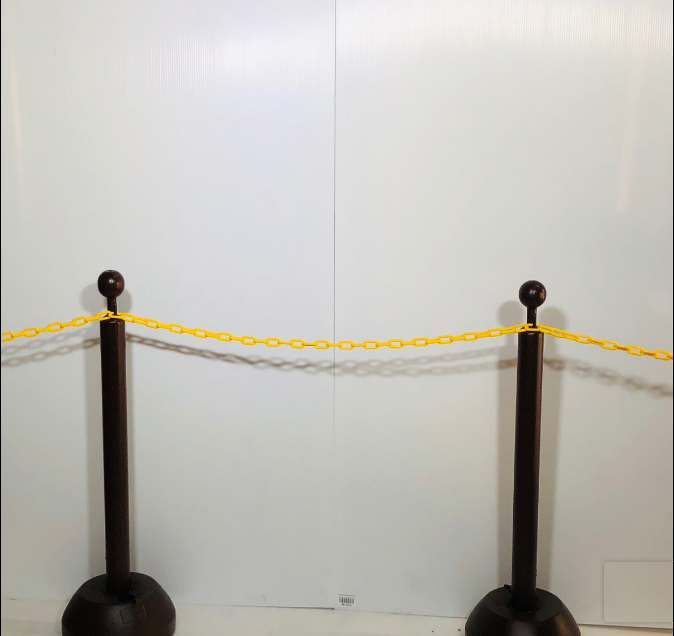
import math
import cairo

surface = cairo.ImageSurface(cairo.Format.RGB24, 674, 636)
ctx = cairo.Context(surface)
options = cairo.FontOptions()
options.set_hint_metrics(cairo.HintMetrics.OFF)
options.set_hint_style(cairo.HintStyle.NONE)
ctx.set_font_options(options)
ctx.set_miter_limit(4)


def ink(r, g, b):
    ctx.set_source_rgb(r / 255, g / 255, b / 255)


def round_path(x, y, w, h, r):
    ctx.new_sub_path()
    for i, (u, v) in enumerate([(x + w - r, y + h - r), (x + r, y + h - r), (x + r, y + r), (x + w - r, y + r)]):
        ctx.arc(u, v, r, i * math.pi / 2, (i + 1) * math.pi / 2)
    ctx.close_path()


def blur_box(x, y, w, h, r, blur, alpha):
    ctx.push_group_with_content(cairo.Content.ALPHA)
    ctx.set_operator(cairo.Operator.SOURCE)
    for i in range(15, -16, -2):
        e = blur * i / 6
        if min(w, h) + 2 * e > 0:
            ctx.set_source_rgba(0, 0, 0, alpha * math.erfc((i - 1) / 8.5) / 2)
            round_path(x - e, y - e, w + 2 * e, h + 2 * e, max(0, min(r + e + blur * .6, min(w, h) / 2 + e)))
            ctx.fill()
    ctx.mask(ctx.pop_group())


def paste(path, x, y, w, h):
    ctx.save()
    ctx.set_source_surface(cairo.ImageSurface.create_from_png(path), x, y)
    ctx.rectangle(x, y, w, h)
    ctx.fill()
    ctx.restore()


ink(0, 0, 0)
ctx.paint()
paste("pic1.png", 1, 0, 672, 636)
ctx.save()
ctx.set_fill_rule(cairo.FillRule.EVEN_ODD)
ctx.new_path()
ctx.move_to(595, 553)
ctx.line_to(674, 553)
ctx.line_to(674, 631)
ctx.line_to(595, 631)
ctx.close_path()
ctx.move_to(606, 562)
ctx.line_to(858, 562)
ctx.curve_to(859, 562, 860, 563, 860, 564)
ctx.line_to(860, 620)
ctx.curve_to(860, 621, 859, 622, 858, 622)
ctx.line_to(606, 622)
ctx.curve_to(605, 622, 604, 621, 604, 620)
ctx.line_to(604, 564)
ctx.curve_to(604, 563, 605, 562, 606, 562)
ctx.close_path()
ctx.clip()
ink(128, 128, 128)
blur_box(604, 562, 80, 60, 2, 2.5, 1)
ctx.restore()
surface.write_to_png("screenshot.png")
